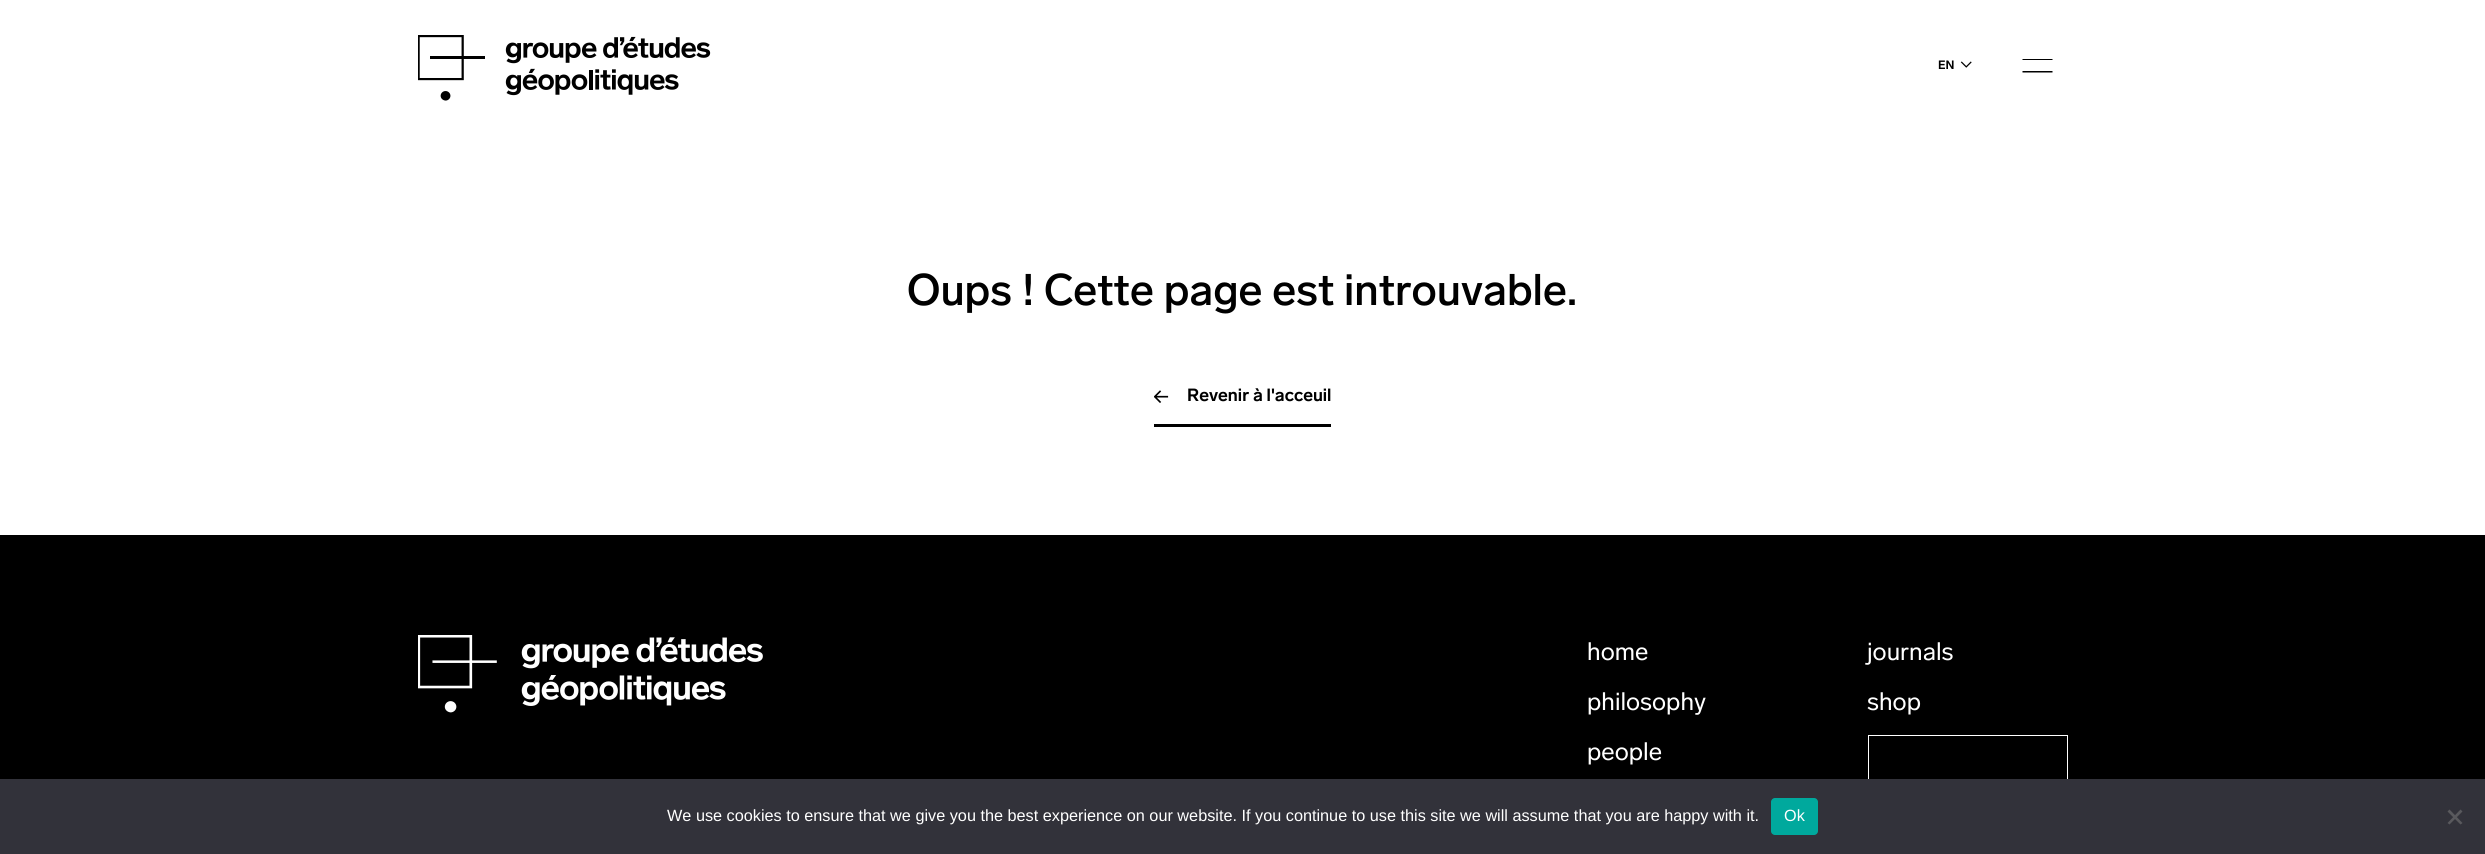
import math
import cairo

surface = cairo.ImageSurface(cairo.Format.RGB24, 2485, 854)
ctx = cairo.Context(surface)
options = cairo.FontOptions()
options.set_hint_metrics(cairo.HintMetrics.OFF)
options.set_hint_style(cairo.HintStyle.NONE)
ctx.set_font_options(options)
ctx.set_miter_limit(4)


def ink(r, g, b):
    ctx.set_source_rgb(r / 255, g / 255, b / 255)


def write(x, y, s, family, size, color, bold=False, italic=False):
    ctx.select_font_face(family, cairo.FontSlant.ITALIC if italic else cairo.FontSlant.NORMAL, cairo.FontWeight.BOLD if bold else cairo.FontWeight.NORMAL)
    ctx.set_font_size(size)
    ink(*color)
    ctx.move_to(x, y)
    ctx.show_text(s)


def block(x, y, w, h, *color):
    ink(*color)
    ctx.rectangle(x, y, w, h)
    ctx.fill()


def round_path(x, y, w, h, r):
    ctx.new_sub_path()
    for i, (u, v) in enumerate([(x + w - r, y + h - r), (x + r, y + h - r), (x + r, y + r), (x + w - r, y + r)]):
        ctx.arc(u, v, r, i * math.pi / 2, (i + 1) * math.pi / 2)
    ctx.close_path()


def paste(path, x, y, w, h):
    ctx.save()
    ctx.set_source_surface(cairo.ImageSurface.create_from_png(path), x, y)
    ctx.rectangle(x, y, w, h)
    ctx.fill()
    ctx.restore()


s1 = dict(family="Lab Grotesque", size=12, color=(0, 0, 0), bold=True)
s2 = dict(family="Lab Grotesque Medium", size=43.75, color=(0, 0, 0))
s3 = dict(family="Lab Grotesque", size=17.5, color=(0, 0, 0), bold=True)
s4 = dict(family="Lab Grotesque", size=25, color=(255, 255, 255))
s5 = dict(family="Liberation Sans", size=16.25, color=(255, 255, 255))

ink(255, 255, 255)
ctx.paint()
paste("pic1.png", 418, 35, 293, 66)
write(1938, 69, "EN", **s1)
paste("pic2.png", 1960, 61, 12, 7)
ctx.new_path()
ctx.move_to(2022.5, 59)
ctx.line_to(2052.5, 59)
ctx.line_to(2052.5, 60)
ctx.line_to(2022.5, 60)
ctx.close_path()
ctx.move_to(2022.5, 71)
ctx.line_to(2052.5, 71)
ctx.line_to(2052.5, 72.5)
ctx.line_to(2022.5, 72.5)
ctx.close_path()
ctx.fill()
write(907, 305, "Oups ! Cette page est introuvable.", **s2)
paste("pic3.png", 1154, 390, 15, 13)
write(1187, 401, "Revenir à l'acceuil", **s3)
block(1154, 424, 177, 3, 0, 0, 0)
block(0, 535, 2485, 244, 0, 0, 0)
paste("pic4.png", 418, 635, 345, 78)
write(1587, 660, "home", **s4)
write(1867, 660, "journals", **s4)
write(1587, 710, "philosophy", **s4)
write(1867, 710, "shop", **s4)
write(1587, 760, "people", **s4)
ctx.rectangle(1868.5, 735.5, 199, 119)
ctx.set_line_width(1)
ctx.stroke()
block(0, 779, 2485, 75, 50, 50, 58)
write(667, 821, "We use cookies to ensure that we give you the best experience on our website. If you continue to use this site we will assume that you are happy with it.", **s5)
ink(0, 169, 157)
round_path(1771, 798, 47, 37, 4)
ctx.fill()
write(1784, 821, "Ok", **s5)
ink(89, 89, 93)
ctx.new_path()
ctx.move_to(2460.5, 809.5)
ctx.line_to(2462.5, 811.5)
ctx.line_to(2449.5, 824.5)
ctx.line_to(2447.5, 823)
ctx.close_path()
ctx.fill()
ctx.new_path()
ctx.move_to(2447.5, 811.5)
ctx.line_to(2449.5, 809.5)
ctx.line_to(2462.5, 823)
ctx.line_to(2460.5, 824.5)
ctx.close_path()
ctx.fill()
surface.write_to_png("screenshot.png")
